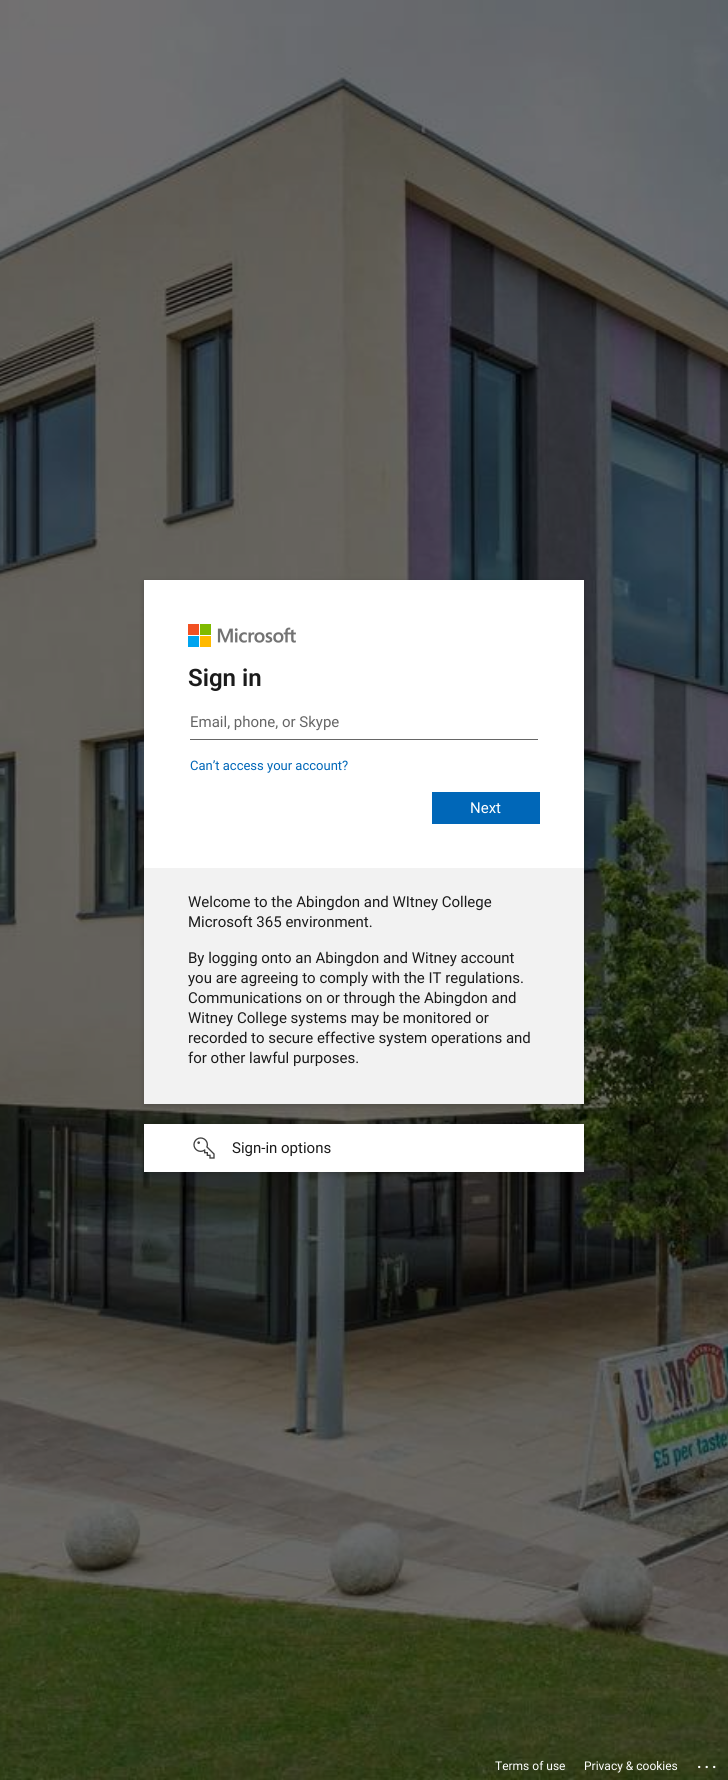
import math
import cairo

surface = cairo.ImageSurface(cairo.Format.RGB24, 728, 1780)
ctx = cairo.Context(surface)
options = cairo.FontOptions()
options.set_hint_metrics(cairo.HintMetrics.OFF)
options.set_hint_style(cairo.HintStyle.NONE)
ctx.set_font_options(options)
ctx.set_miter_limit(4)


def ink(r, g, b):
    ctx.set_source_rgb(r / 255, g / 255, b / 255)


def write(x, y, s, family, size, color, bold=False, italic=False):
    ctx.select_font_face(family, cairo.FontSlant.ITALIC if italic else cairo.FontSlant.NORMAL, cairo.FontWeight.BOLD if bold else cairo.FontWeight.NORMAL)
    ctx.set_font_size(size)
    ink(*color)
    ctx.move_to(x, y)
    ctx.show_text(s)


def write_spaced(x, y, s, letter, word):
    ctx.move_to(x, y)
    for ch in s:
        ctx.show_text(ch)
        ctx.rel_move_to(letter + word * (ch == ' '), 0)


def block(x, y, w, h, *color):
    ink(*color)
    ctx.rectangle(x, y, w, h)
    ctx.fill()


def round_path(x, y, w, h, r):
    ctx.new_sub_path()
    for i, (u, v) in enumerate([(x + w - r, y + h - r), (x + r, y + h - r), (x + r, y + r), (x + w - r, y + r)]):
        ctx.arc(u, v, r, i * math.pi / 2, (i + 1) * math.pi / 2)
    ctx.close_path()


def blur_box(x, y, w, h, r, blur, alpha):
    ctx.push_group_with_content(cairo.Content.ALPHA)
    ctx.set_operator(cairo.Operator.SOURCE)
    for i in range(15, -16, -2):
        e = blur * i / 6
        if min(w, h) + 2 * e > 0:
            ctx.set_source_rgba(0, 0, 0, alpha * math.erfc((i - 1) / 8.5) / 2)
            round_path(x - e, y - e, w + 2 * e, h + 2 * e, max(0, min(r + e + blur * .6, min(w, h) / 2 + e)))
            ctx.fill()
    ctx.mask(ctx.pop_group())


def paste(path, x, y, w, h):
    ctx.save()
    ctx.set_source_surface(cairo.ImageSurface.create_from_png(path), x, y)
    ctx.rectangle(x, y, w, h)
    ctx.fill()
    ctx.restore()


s1 = dict(family="Roboto SemiBold", size=24, color=(27, 27, 27))
s2 = dict(family="Roboto", size=15, color=(102, 102, 102))
s3 = dict(family="Roboto", size=13, color=(0, 103, 184))
s4 = dict(family="Roboto", size=15, color=(255, 255, 255))
s5 = dict(family="Roboto", size=15, color=(27, 27, 27))
s6 = dict(family="Roboto", size=12, color=(255, 255, 255))

ink(255, 255, 255)
ctx.paint()
paste("pic1.png", 0, 0, 728, 1780)
ink(0, 0, 0)
blur_box(144, 582, 440, 524, 0, 3, 0.2)
block(144, 580, 440, 288, 255, 255, 255)
paste("pic2.png", 188, 624, 108, 23)
write(188, 686, "Sign in", **s1)
block(190, 739, 348, 1, 102, 102, 102)
write(190, 727, "Email, phone, or Skype", **s2)
write(190, 770, "Can’t access your account?", **s3)
block(432, 792, 108, 32, 0, 103, 184)
write(470, 813, "Next", **s4)
block(144, 868, 440, 236, 242, 242, 242)
write(188, 907, "Welcome to the Abingdon and WItney College", **s5)
write(188, 927, "Microsoft 365 environment.", **s5)
write(188, 963, "By logging onto an Abingdon and Witney account", **s5)
write(188, 983, "you are agreeing to comply with the IT regulations.", **s5)
write(188, 1003, "Communications on or through the Abingdon and", **s5)
write(188, 1023, "Witney College systems may be monitored or", **s5)
write(188, 1043, "recorded to secure effective system operations and", **s5)
write(188, 1063, "for other lawful purposes.", **s5)
ink(0, 0, 0)
blur_box(144, 1126, 440, 48, 0, 3, 0.2)
block(144, 1124, 440, 48, 255, 255, 255)
paste("pic3.png", 193, 1137, 22, 22)
write(232, 1153, "Sign-in options", **s5)
write(495, 1770, "Terms of use", **s6)
write(584, 1770, "Privacy & cookies", **s6)
ctx.select_font_face("Roboto SemiBold")
ctx.set_font_size(16)
write_spaced(697, 1768, "...", 3, 0)
surface.write_to_png("screenshot.png")
